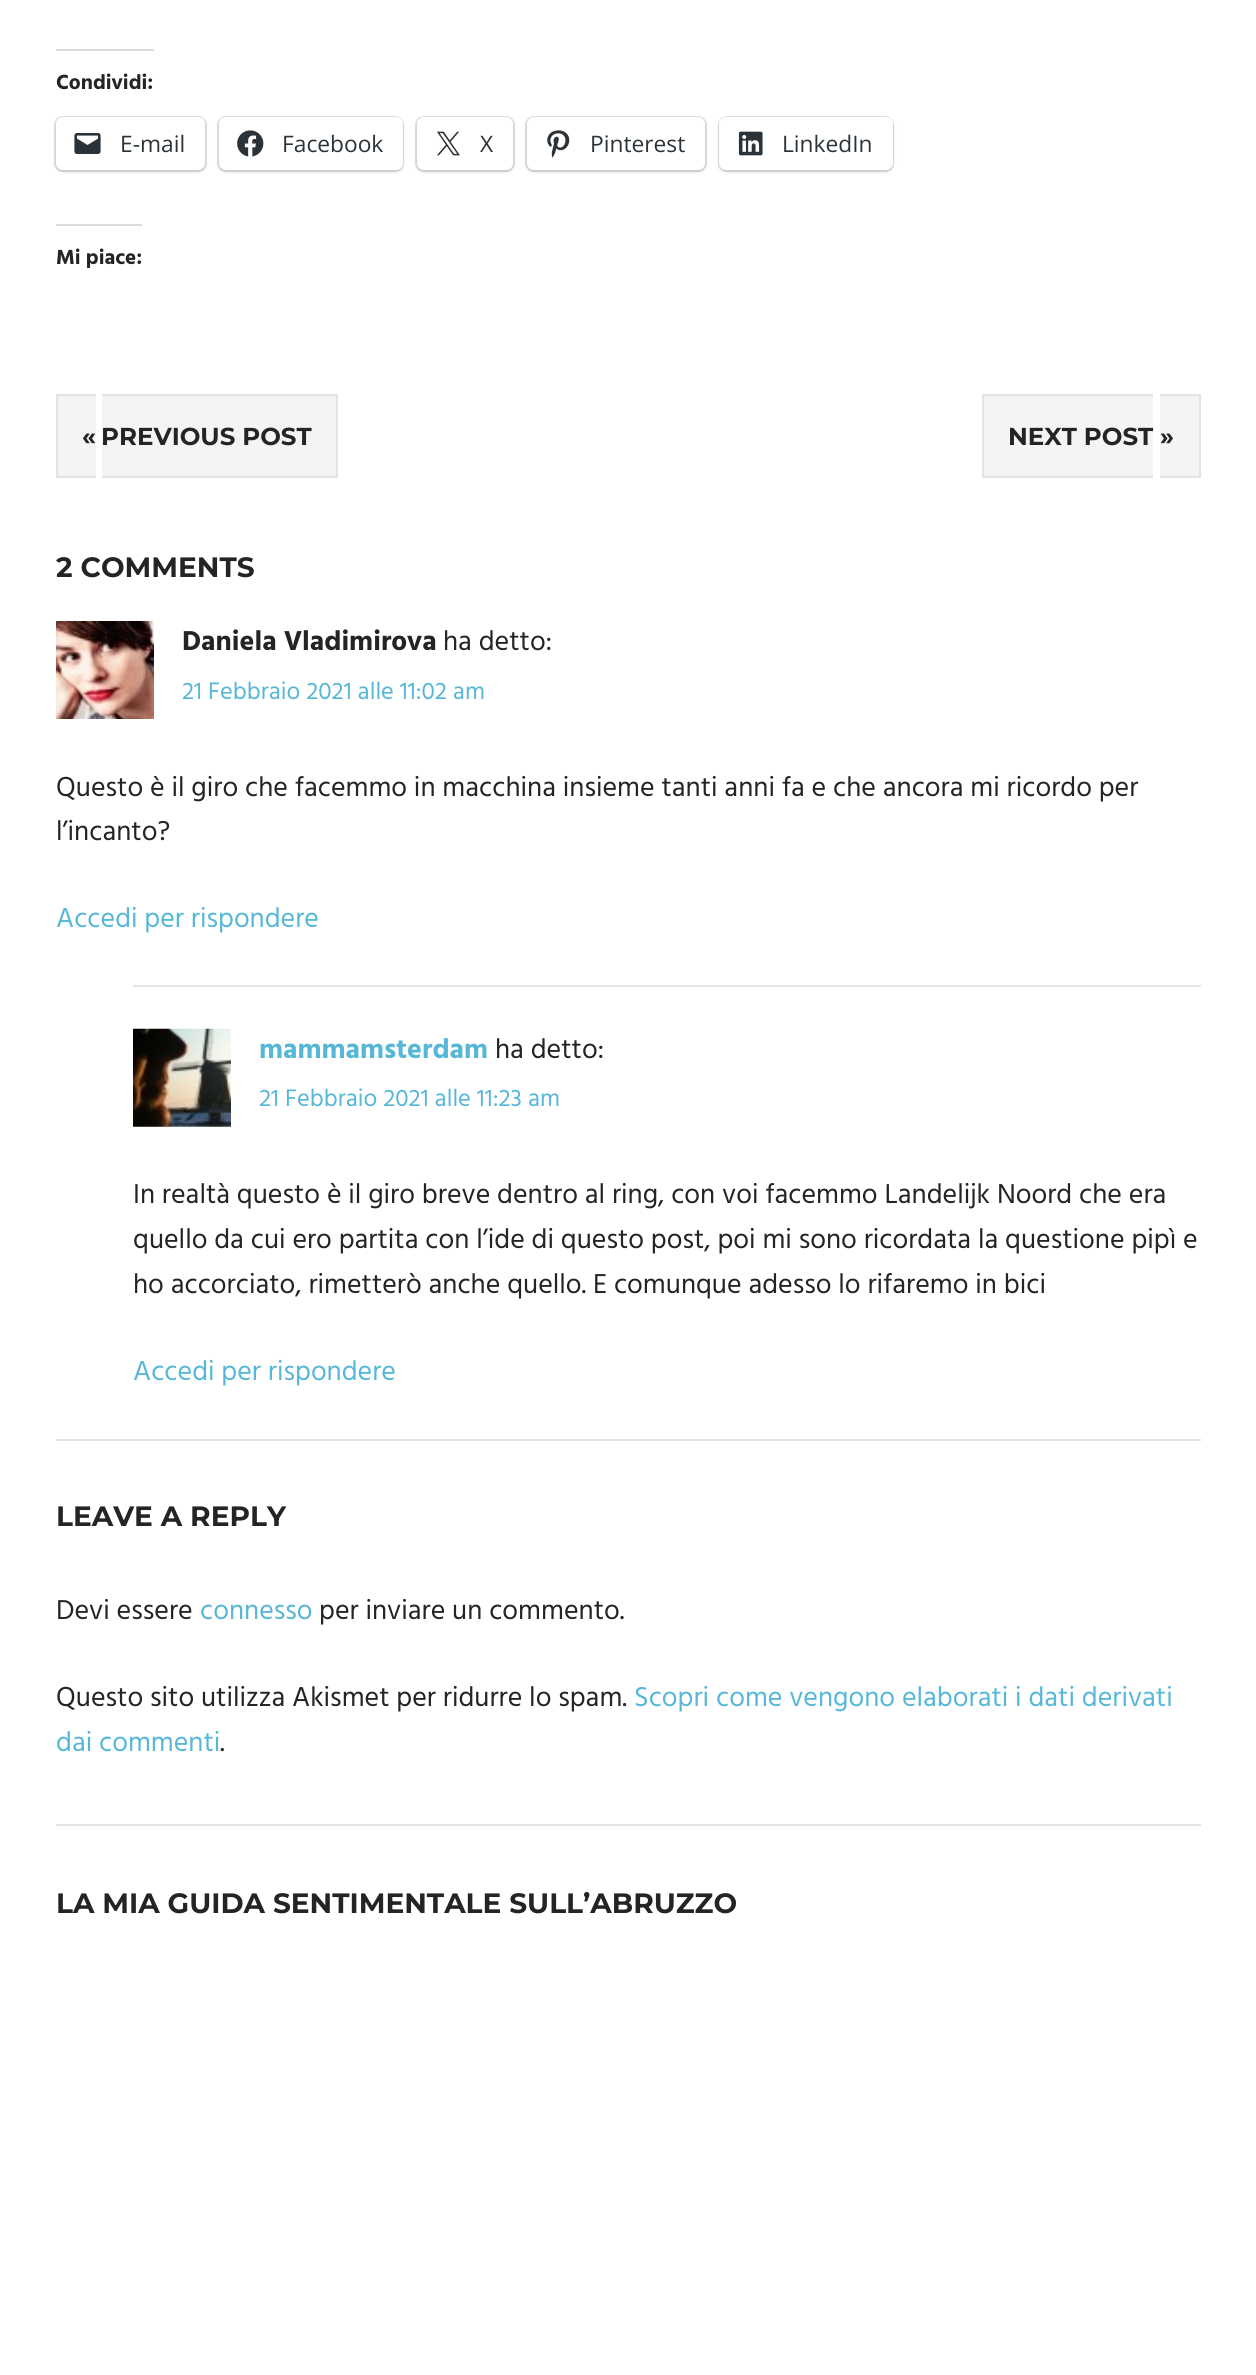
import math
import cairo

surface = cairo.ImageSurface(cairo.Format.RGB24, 1256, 2375)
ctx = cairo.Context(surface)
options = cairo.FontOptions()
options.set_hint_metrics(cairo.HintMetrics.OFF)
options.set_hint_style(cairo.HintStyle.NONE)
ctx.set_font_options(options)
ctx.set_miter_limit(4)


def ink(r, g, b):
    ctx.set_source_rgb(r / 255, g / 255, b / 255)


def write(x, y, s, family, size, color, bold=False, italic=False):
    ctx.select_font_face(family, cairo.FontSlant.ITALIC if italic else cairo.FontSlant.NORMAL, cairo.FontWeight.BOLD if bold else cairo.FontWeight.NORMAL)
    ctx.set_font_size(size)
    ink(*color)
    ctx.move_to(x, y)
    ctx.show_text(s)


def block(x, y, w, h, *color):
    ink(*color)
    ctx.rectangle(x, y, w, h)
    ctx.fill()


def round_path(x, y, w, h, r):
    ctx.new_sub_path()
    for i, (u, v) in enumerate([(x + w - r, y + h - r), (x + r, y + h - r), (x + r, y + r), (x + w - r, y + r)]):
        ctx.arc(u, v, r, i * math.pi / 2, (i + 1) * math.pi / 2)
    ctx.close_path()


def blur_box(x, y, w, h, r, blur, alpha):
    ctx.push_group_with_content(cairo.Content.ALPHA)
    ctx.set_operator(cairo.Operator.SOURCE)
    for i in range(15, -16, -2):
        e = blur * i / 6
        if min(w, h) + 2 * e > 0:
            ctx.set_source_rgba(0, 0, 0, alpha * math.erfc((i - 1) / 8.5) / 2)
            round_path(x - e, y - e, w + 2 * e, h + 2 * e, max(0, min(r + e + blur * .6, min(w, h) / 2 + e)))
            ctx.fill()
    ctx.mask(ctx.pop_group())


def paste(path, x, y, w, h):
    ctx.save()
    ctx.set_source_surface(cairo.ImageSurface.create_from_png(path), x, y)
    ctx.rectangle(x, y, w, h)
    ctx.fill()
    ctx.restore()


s1 = dict(family="Hind", size=21, color=(36, 36, 36), bold=True)
s2 = dict(family="Open Sans", size=22.75, color=(44, 51, 56))
s3 = dict(family="Montserrat Thin", size=24.5, color=(36, 36, 36))
s4 = dict(family="Montserrat Thin", size=28, color=(36, 36, 36))
s5 = dict(family="Hind", size=28, color=(36, 36, 36), bold=True)
s6 = dict(family="Hind", size=28, color=(36, 36, 36))
s7 = dict(family="Hind", size=24.5, color=(87, 183, 215))
s8 = dict(family="Hind", size=28, color=(87, 183, 215))
s9 = dict(family="Hind", size=28, color=(87, 183, 215), bold=True)

ink(255, 255, 255)
ctx.paint()
block(56, 49, 98, 2, 220, 220, 222)
write(56, 89, "Condividi:", **s1)
round_path(55, 117, 151, 54, 8)
ink(224, 224, 224)
ctx.stroke()
ink(0, 0, 0)
blur_box(56, 119, 149, 53, 7, 2, 0.12)
ink(255, 255, 255)
round_path(56, 117, 149, 53, 7)
ctx.fill()
paste("pic1.png", 74, 133, 27, 21)
write(120, 152, "E-mail", **s2)
round_path(218, 117, 185, 54, 8)
ink(224, 224, 224)
ctx.stroke()
ink(0, 0, 0)
blur_box(219, 119, 184, 53, 7, 2, 0.12)
ink(255, 255, 255)
round_path(219, 117, 184, 53, 7)
ctx.fill()
paste("pic2.png", 237, 130, 27, 27)
write(282, 152, "Facebook", **s2)
round_path(416, 117, 98, 54, 8)
ink(224, 224, 224)
ctx.stroke()
ink(0, 0, 0)
blur_box(417, 119, 96, 53, 7, 2, 0.12)
ink(255, 255, 255)
round_path(417, 117, 96, 53, 7)
ctx.fill()
paste("pic3.png", 437, 131, 23, 25)
write(480, 152, "X", **s2)
round_path(526, 117, 180, 54, 8)
ink(224, 224, 224)
ctx.stroke()
ink(0, 0, 0)
blur_box(527, 119, 178, 53, 7, 2, 0.12)
ink(255, 255, 255)
round_path(527, 117, 178, 53, 7)
ctx.fill()
paste("pic4.png", 547, 130, 23, 28)
write(590, 152, "Pinterest", **s2)
round_path(719, 117, 174, 54, 8)
ink(224, 224, 224)
ctx.stroke()
ink(0, 0, 0)
blur_box(719, 119, 174, 53, 7, 2, 0.12)
ink(255, 255, 255)
round_path(719, 117, 174, 53, 7)
ctx.fill()
paste("pic5.png", 738, 131, 25, 25)
write(782, 152, "LinkedIn", **s2)
block(56, 224, 86, 2, 220, 220, 222)
write(56, 264, "Mi piace:", **s1)
block(58, 396, 38, 80, 244, 244, 244)
write(82, 445, "«", **s3)
block(56, 394, 40, 2, 228, 228, 228)
block(56, 476, 40, 2, 228, 228, 228)
block(56, 394, 2, 84, 228, 228, 228)
block(102, 396, 234, 80, 244, 244, 244)
write(101, 445, "PREVIOUS POST", **s3)
block(102, 394, 236, 2, 228, 228, 228)
block(336, 394, 2, 84, 228, 228, 228)
block(102, 476, 236, 2, 228, 228, 228)
block(984, 396, 169, 80, 244, 244, 244)
block(1160, 396, 39, 80, 244, 244, 244)
write(1008, 445, "NEXT POST »", **s3)
block(982, 394, 171, 2, 228, 228, 228)
block(982, 476, 171, 2, 228, 228, 228)
block(982, 394, 2, 84, 228, 228, 228)
block(1160, 394, 41, 2, 228, 228, 228)
block(1199, 394, 2, 84, 228, 228, 228)
block(1160, 476, 41, 2, 228, 228, 228)
write(56, 577, "2 COMMENTS", **s4)
block(56, 1439, 1145, 2, 228, 228, 228)
paste("pic6.png", 56, 621, 98, 98)
write(182, 650, "Daniela Vladimirova", **s5)
write(443, 650, "ha detto:", **s6)
write(182, 699, "21 Febbraio 2021 alle 11:02 am", **s7)
write(56, 796, "Questo è il giro che facemmo in macchina insieme tanti anni fa e che ancora mi ricordo per", **s6)
write(56, 840, "l’incanto?", **s6)
write(56, 927, "Accedi per rispondere", **s8)
block(133, 985, 1068, 2, 228, 228, 228)
paste("pic7.png", 133, 1028, 98, 99)
write(259, 1058, "mammamsterdam", **s9)
write(495, 1058, "ha detto:", **s6)
write(259, 1106, "21 Febbraio 2021 alle 11:23 am", **s7)
write(133, 1203, "In realtà questo è il giro breve dentro al ring, con voi facemmo Landelijk Noord che era", **s6)
write(133, 1248, "quello da cui ero partita con l’ide di questo post, poi mi sono ricordata la questione pipì e", **s6)
write(133, 1293, "ho accorciato, rimetterò anche quello. E comunque adesso lo rifaremo in bici", **s6)
write(133, 1380, "Accedi per rispondere", **s8)
write(56, 1526, "LEAVE A REPLY", **s4)
write(56, 1619, "Devi essere", **s6)
write(200, 1619, "connesso", **s8)
write(319, 1619, "per inviare un commento.", **s6)
write(56, 1706, "Questo sito utilizza Akismet per ridurre lo spam.", **s6)
write(634, 1706, "Scopri come vengono elaborati i dati derivati", **s8)
write(56, 1751, "dai commenti", **s8)
write(220, 1751, ".", **s6)
block(56, 1824, 1145, 2, 229, 229, 229)
write(56, 1913, "LA MIA GUIDA SENTIMENTALE SULL’ABRUZZO", **s4)
surface.write_to_png("screenshot.png")
